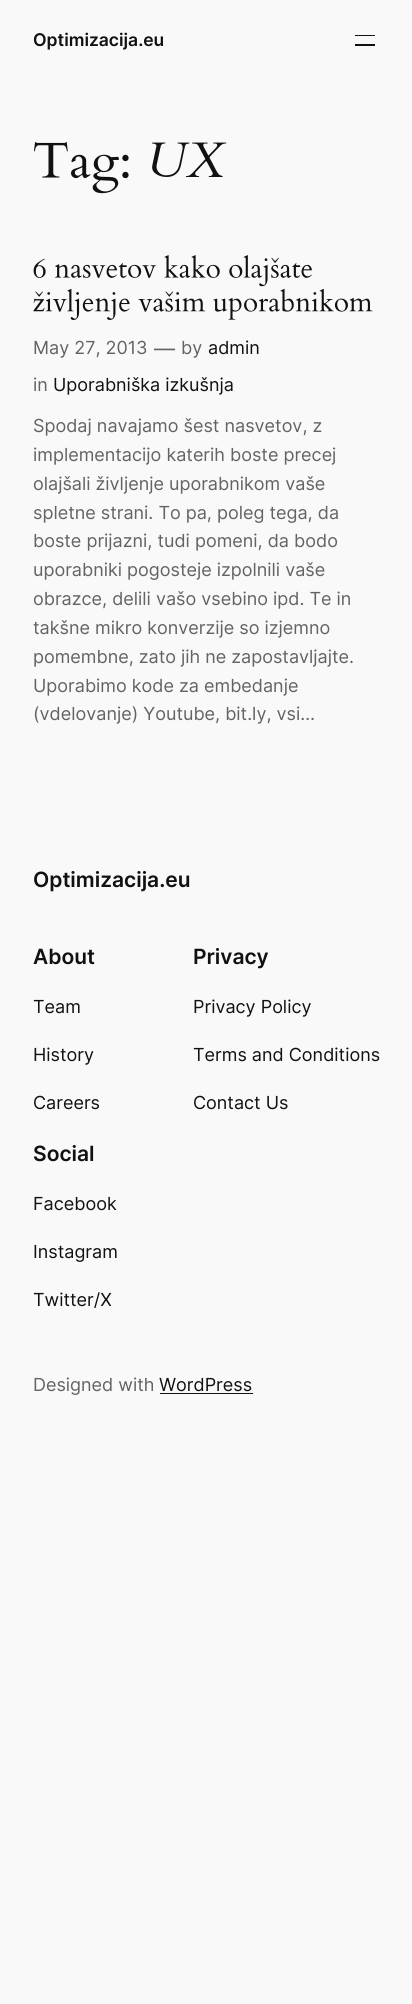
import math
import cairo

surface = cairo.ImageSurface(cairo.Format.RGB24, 412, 2004)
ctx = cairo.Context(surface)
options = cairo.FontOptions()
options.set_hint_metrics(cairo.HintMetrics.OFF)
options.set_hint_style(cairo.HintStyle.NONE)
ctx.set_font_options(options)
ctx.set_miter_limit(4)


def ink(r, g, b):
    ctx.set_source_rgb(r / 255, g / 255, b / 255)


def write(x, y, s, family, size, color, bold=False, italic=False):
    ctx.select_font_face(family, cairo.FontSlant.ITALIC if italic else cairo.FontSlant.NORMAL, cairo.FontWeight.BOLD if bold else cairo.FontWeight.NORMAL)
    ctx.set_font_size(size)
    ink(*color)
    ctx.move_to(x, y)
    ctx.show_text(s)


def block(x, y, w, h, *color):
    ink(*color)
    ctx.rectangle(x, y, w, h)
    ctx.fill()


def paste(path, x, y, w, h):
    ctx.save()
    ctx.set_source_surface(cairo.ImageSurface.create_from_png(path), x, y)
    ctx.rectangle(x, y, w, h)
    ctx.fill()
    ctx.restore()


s1 = dict(family="Inter SemiBold", size=17.5, color=(17, 17, 17))
s2 = dict(family="Cardo", size=50, color=(17, 17, 17), italic=True)
s3 = dict(family="Inter", size=18, color=(99, 99, 99))
s4 = dict(family="Inter", size=21, color=(99, 99, 99))
s5 = dict(family="Inter", size=18, color=(17, 17, 17))
s6 = dict(family="Inter SemiBold", size=21, color=(17, 17, 17))

ink(249, 249, 249)
ctx.paint()
write(33, 46, "Optimizacija.eu", **s1)
block(355, 35, 20, 1, 17, 17, 17)
block(355, 44, 20, 2, 17, 17, 17)
paste("pic1.png", 34, 142, 95, 52)
write(146, 177, "UX", **s2)
paste("pic2.png", 33, 255, 279, 32)
paste("pic3.png", 33, 288, 340, 32)
write(33, 354, "May 27, 2013", **s3)
write(154, 356, "—", **s4)
write(181, 354, "by", **s3)
write(208, 354, "admin", **s5)
write(33, 391, "in", **s3)
write(53, 391, "Uporabniška izkušnja", **s5)
write(33, 432, "Spodaj navajamo šest nasvetov, z", **s3)
write(33, 461, "implementacijo katerih boste precej", **s3)
write(33, 490, "olajšali življenje uporabnikom vaše", **s3)
write(33, 519, "spletne strani. To pa, poleg tega, da", **s3)
write(33, 547, "boste prijazni, tudi pomeni, da bodo", **s3)
write(33, 576, "uporabniki pogosteje izpolnili vaše", **s3)
write(33, 605, "obrazce, delili vašo vsebino ipd. Te in", **s3)
write(33, 634, "takšne mikro konverzije so izjemno", **s3)
write(33, 663, "pomembne, zato jih ne zapostavljajte.", **s3)
write(33, 692, "Uporabimo kode za embedanje", **s3)
write(33, 720, "(vdelovanje) Youtube, bit.ly, vsi…", **s3)
write(33, 887, "Optimizacija.eu", **s6)
write(33, 964, "About", **s6)
write(33, 1013, "Team", **s5)
write(33, 1061, "History", **s5)
write(33, 1109, "Careers", **s5)
write(193, 964, "Privacy", **s6)
write(193, 1013, "Privacy Policy", **s5)
write(193, 1061, "Terms and Conditions", **s5)
write(193, 1109, "Contact Us", **s5)
write(33, 1161, "Social", **s6)
write(33, 1210, "Facebook", **s5)
write(33, 1258, "Instagram", **s5)
write(33, 1306, "Twitter/X", **s5)
write(33, 1391, "Designed with", **s3)
write(159, 1391, "WordPress", **s5)
block(160, 1393, 93, 1, 17, 17, 17)
surface.write_to_png("screenshot.png")
